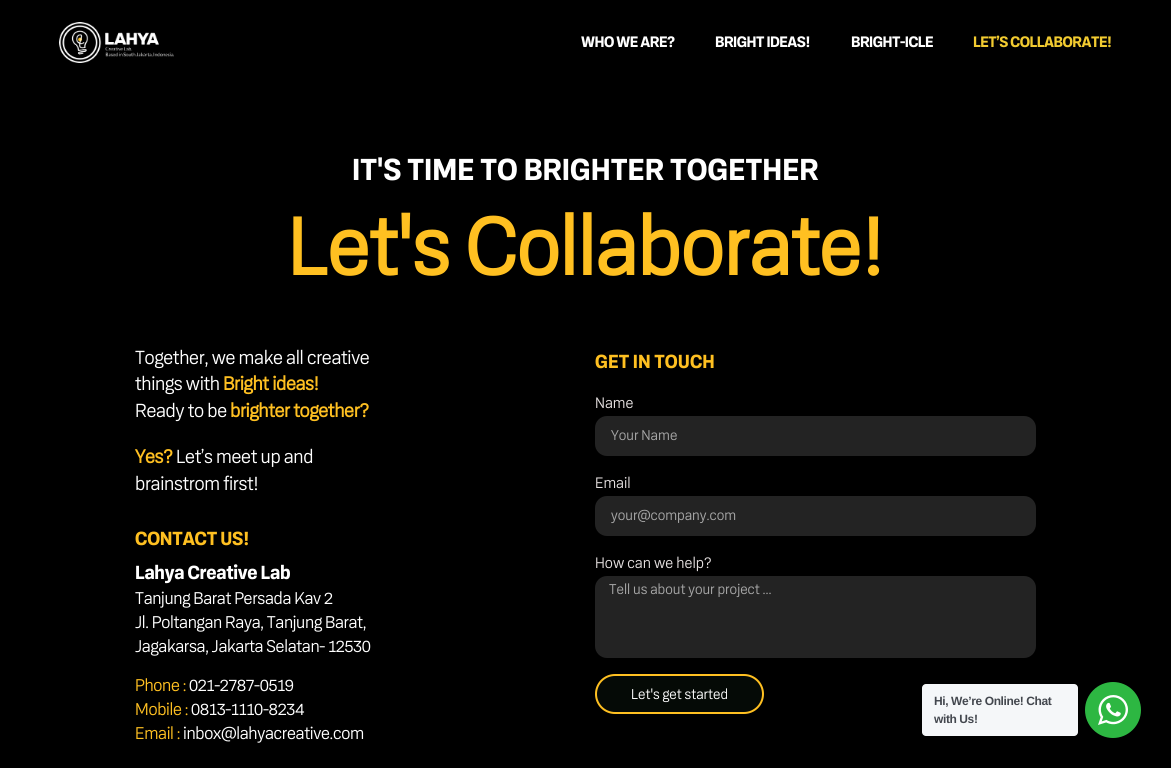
import math
import cairo

surface = cairo.ImageSurface(cairo.Format.RGB24, 1171, 768)
ctx = cairo.Context(surface)
options = cairo.FontOptions()
options.set_hint_metrics(cairo.HintMetrics.OFF)
options.set_hint_style(cairo.HintStyle.NONE)
ctx.set_font_options(options)
ctx.set_miter_limit(4)


def ink(r, g, b):
    ctx.set_source_rgb(r / 255, g / 255, b / 255)


def write(x, y, s, family, size, color, bold=False, italic=False):
    ctx.select_font_face(family, cairo.FontSlant.ITALIC if italic else cairo.FontSlant.NORMAL, cairo.FontWeight.BOLD if bold else cairo.FontWeight.NORMAL)
    ctx.set_font_size(size)
    ink(*color)
    ctx.move_to(x, y)
    ctx.show_text(s)


def write_spaced(x, y, s, letter, word):
    ctx.move_to(x, y)
    for ch in s:
        ctx.show_text(ch)
        ctx.rel_move_to(letter + word * (ch == ' '), 0)


def round_path(x, y, w, h, r):
    ctx.new_sub_path()
    for i, (u, v) in enumerate([(x + w - r, y + h - r), (x + r, y + h - r), (x + r, y + r), (x + w - r, y + r)]):
        ctx.arc(u, v, r, i * math.pi / 2, (i + 1) * math.pi / 2)
    ctx.close_path()


def paste(path, x, y, w, h):
    ctx.save()
    ctx.set_source_surface(cairo.ImageSurface.create_from_png(path), x, y)
    ctx.rectangle(x, y, w, h)
    ctx.fill()
    ctx.restore()


s1 = dict(family="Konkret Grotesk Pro", size=32, color=(255, 255, 255), bold=True)
s2 = dict(family="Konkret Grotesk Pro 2", size=85, color=(255, 192, 33), bold=True)
s3 = dict(family="Konkret Grotesk Pro", size=20, color=(255, 192, 33), bold=True)
s4 = dict(family="Konkret Grotesk Pro", size=16, color=(228, 223, 223))
s5 = dict(family="Konkret Grotesk Pro", size=15, color=(167, 167, 167))
s6 = dict(family="Konkret Grotesk Pro", size=15, color=(255, 255, 255))

ink(0, 0, 0)
ctx.paint()
paste("pic1.png", 59, 22, 115, 41)
ctx.select_font_face("Konkret Grotesk Pro", cairo.FontSlant.NORMAL, cairo.FontWeight.BOLD)
ctx.set_font_size(16)
ink(255, 255, 255)
write_spaced(581, 47, "WHO WE ARE?", -0.5, 0)
write_spaced(715, 47, "BRIGHT IDEAS!", -0.5, 0)
write_spaced(851, 47, "BRIGHT-ICLE", -0.5, 0)
ink(242, 203, 48)
write_spaced(973, 47, "LET’S COLLABORATE!", -0.5, 0)
write(352, 180, "IT'S TIME TO BRIGHTER TOGETHER", **s1)
write(287, 275, "Let's Collaborate!", **s2)
ctx.select_font_face("Konkret Grotesk Pro")
ctx.set_font_size(20)
ink(255, 255, 255)
write_spaced(135, 364, "Together, we make all creative", -0.3, 0)
write_spaced(135, 390, "things with", -0.3, 0)
ctx.select_font_face("Konkret Grotesk Pro 2", cairo.FontSlant.NORMAL, cairo.FontWeight.BOLD)
ink(255, 192, 33)
write_spaced(223, 390, "Bright ideas!", -0.3, 0)
ctx.select_font_face("Konkret Grotesk Pro")
ink(255, 255, 255)
write_spaced(135, 417, "Ready to be", -0.3, 0)
ctx.select_font_face("Konkret Grotesk Pro 2", cairo.FontSlant.NORMAL, cairo.FontWeight.BOLD)
ink(255, 192, 33)
write_spaced(230, 417, "brighter together?", -0.3, 0)
write_spaced(135, 463, "Yes?", -0.3, 0)
ctx.select_font_face("Konkret Grotesk Pro")
ink(255, 255, 255)
write_spaced(176, 463, "Let’s meet up and", -0.3, 0)
write_spaced(135, 490, "brainstrom first!", -0.3, 0)
ctx.select_font_face("Konkret Grotesk Pro", cairo.FontSlant.NORMAL, cairo.FontWeight.BOLD)
ink(255, 192, 33)
write_spaced(135, 545, "CONTACT US!", -0.3, 0)
ink(255, 255, 255)
write_spaced(135, 579, "Lahya Creative Lab", -0.3, 0)
ctx.select_font_face("Konkret Grotesk Pro")
ctx.set_font_size(18)
write_spaced(135, 604, "Tanjung Barat Persada Kav 2", -0.3, 0)
write_spaced(135, 628, "Jl. Poltangan Raya, Tanjung Barat,", -0.3, 0)
write_spaced(135, 652, "Jagakarsa, Jakarta Selatan- 12530", -0.3, 0)
ink(255, 192, 33)
write_spaced(135, 691, "Phone :", -0.3, 0)
ink(255, 255, 255)
write_spaced(189, 691, "021-2787-0519", -0.3, 0)
ink(255, 192, 33)
write_spaced(135, 715, "Mobile :", -0.3, 0)
ink(255, 255, 255)
write_spaced(191, 715, "0813-1110-8234", -0.3, 0)
ink(255, 192, 33)
write_spaced(135, 739, "Email :", -0.3, 0)
ink(255, 255, 255)
write_spaced(183, 739, "inbox@lahyacreative.com", -0.3, 0)
write(595, 368, "GET IN TOUCH", **s3)
write(595, 408, "Name", **s4)
ink(35, 35, 35)
round_path(595, 416, 441, 40, 12)
ctx.fill()
write(611, 440, "Your Name", **s5)
write(595, 488, "Email", **s4)
ink(35, 35, 35)
round_path(595, 496, 441, 40, 12)
ctx.fill()
write(611, 520, "your@company.com", **s5)
write(595, 568, "How can we help?", **s4)
ink(35, 35, 35)
round_path(595, 576, 441, 82, 12)
ctx.fill()
write(609, 594, "Tell us about your project ...", **s5)
ink(5, 10, 6)
round_path(596, 675, 167, 38, 19)
ctx.fill_preserve()
ink(255, 192, 33)
ctx.stroke()
write(631, 699, "Let's get started", **s6)
ink(245, 247, 249)
round_path(922, 684, 156, 52, 4)
ctx.fill()
ctx.select_font_face("Liberation Sans", cairo.FontSlant.NORMAL, cairo.FontWeight.BOLD)
ctx.set_font_size(12)
ink(67, 71, 78)
write_spaced(934, 705, "Hi, We’re Online! Chat", -0.4, 0)
write_spaced(934, 723, "with Us!", -0.4, 0)
ink(45, 183, 66)
ctx.new_path()
ctx.arc(1113, 710, 28, 0, 2 * math.pi)
ctx.fill()
paste("pic2.png", 1098, 695, 30, 30)
surface.write_to_png("screenshot.png")
